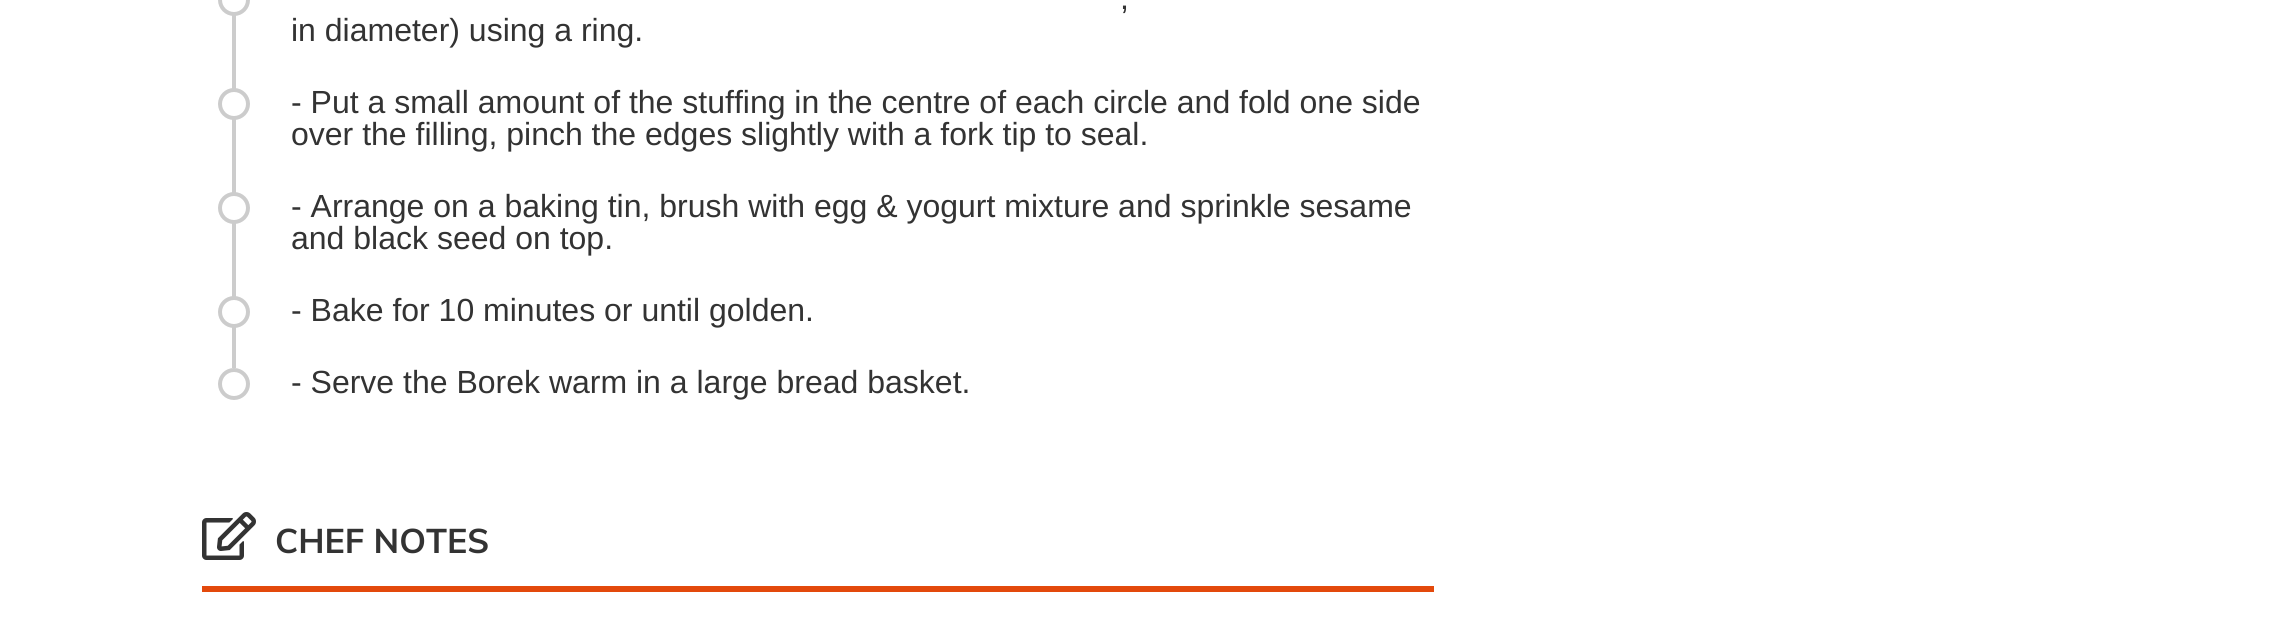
import math
import cairo

surface = cairo.ImageSurface(cairo.Format.RGB24, 2282, 641)
ctx = cairo.Context(surface)
options = cairo.FontOptions()
options.set_hint_metrics(cairo.HintMetrics.OFF)
options.set_hint_style(cairo.HintStyle.NONE)
ctx.set_font_options(options)
ctx.set_miter_limit(4)


def ink(r, g, b):
    ctx.set_source_rgb(r / 255, g / 255, b / 255)


def write(x, y, s, family, size, color, bold=False, italic=False):
    ctx.select_font_face(family, cairo.FontSlant.ITALIC if italic else cairo.FontSlant.NORMAL, cairo.FontWeight.BOLD if bold else cairo.FontWeight.NORMAL)
    ctx.set_font_size(size)
    ink(*color)
    ctx.move_to(x, y)
    ctx.show_text(s)


def block(x, y, w, h, *color):
    ink(*color)
    ctx.rectangle(x, y, w, h)
    ctx.fill()


def paste(path, x, y, w, h):
    ctx.save()
    ctx.set_source_surface(cairo.ImageSurface.create_from_png(path), x, y)
    ctx.rectangle(x, y, w, h)
    ctx.fill()
    ctx.restore()


s1 = dict(family="Liberation Sans", size=32, color=(51, 51, 51))
s2 = dict(family="Muli", size=34, color=(51, 51, 51), bold=True)

ink(255, 255, 255)
ctx.paint()
block(232, 15, 4, 353, 204, 204, 204)
ink(255, 255, 255)
ctx.arc(234, 0, 14, 0, 2 * math.pi)
ctx.fill_preserve()
ink(204, 204, 204)
ctx.set_line_width(4)
ctx.stroke()
write(1120, 9, ",", **s1)
write(291, 41, "in diameter) using a ring.", **s1)
ink(255, 255, 255)
ctx.new_path()
ctx.arc(234, 104, 14, 0, 2 * math.pi)
ctx.fill_preserve()
ink(204, 204, 204)
ctx.stroke()
write(291, 113, "- Put a small amount of the stuffing in the centre of each circle and fold one side", **s1)
write(291, 145, "over the filling, pinch the edges slightly with a fork tip to seal.", **s1)
ink(255, 255, 255)
ctx.new_path()
ctx.arc(234, 208, 14, 0, 2 * math.pi)
ctx.fill_preserve()
ink(204, 204, 204)
ctx.stroke()
write(291, 217, "- Arrange on a baking tin, brush with egg & yogurt mixture and sprinkle sesame", **s1)
write(291, 249, "and black seed on top.", **s1)
ink(255, 255, 255)
ctx.new_path()
ctx.arc(234, 312, 14, 0, 2 * math.pi)
ctx.fill_preserve()
ink(204, 204, 204)
ctx.stroke()
write(291, 321, "- Bake for 10 minutes or until golden.", **s1)
ctx.new_path()
ctx.arc(234, 384, 14, 0, 2 * math.pi)
ink(204, 204, 204)
ctx.stroke()
write(291, 393, "- Serve the Borek warm in a large bread basket.", **s1)
block(202, 586, 1232, 6, 227, 73, 12)
paste("pic1.png", 202, 512, 54, 48)
write(275, 553, "CHEF NOTES", **s2)
surface.write_to_png("screenshot.png")
